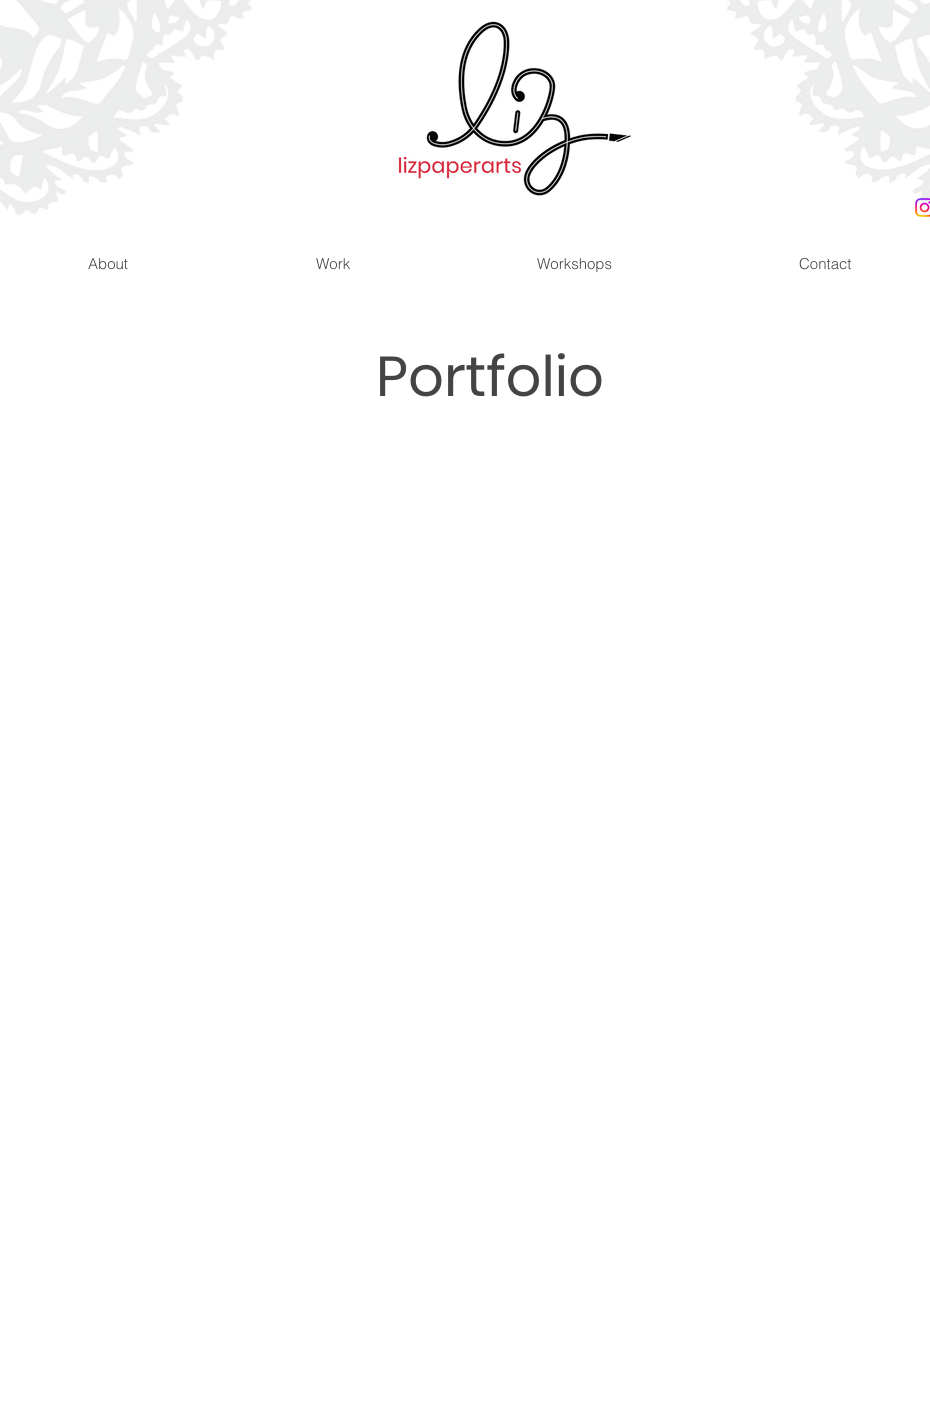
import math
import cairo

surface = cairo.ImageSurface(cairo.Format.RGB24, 930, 1423)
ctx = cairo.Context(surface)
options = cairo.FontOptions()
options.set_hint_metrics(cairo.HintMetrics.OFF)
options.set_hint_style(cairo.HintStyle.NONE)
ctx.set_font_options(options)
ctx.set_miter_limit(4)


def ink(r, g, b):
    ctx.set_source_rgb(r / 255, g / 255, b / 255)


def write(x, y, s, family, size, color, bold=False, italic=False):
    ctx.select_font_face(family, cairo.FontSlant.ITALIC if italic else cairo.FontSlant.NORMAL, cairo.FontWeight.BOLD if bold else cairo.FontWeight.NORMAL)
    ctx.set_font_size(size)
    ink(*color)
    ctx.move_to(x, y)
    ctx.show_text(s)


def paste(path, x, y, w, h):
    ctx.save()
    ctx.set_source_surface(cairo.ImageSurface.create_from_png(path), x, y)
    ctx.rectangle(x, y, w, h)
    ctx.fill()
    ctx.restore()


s1 = dict(family="helvetica Light", size=15, color=(68, 68, 68))
s2 = dict(family="Poppins", size=56, color=(68, 68, 68))

ink(255, 255, 255)
ctx.paint()
paste("pic1.png", 0, 0, 252, 215)
paste("pic2.png", 398, 21, 234, 175)
paste("pic3.png", 727, 0, 203, 208)
paste("pic4.png", 915, 198, 15, 19)
write(88, 269, "About", **s1)
write(316, 269, "Work", **s1)
write(537, 269, "Workshops", **s1)
write(799, 269, "Contact", **s1)
write(376, 396, "Portfolio", **s2)
surface.write_to_png("screenshot.png")
